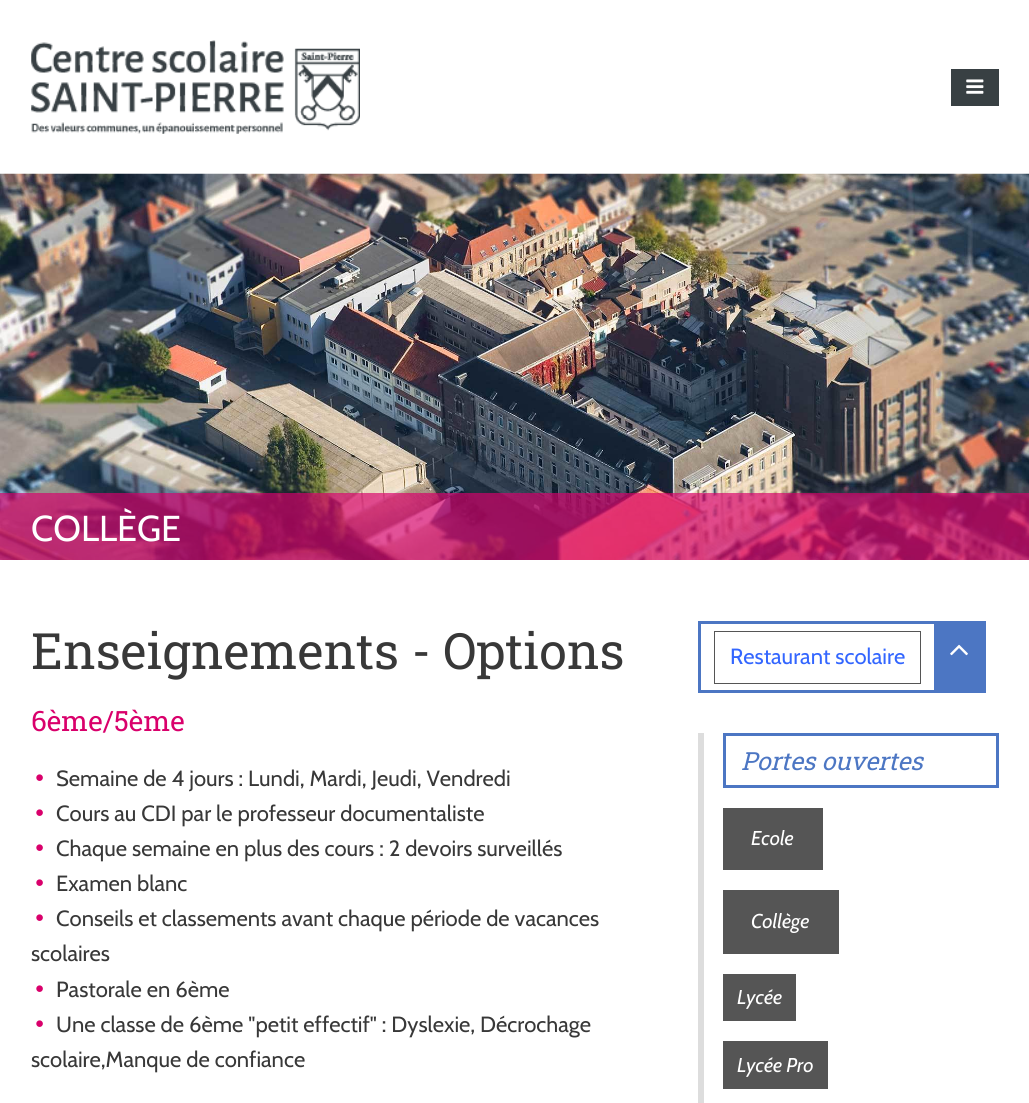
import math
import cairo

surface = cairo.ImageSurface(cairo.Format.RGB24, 1029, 1103)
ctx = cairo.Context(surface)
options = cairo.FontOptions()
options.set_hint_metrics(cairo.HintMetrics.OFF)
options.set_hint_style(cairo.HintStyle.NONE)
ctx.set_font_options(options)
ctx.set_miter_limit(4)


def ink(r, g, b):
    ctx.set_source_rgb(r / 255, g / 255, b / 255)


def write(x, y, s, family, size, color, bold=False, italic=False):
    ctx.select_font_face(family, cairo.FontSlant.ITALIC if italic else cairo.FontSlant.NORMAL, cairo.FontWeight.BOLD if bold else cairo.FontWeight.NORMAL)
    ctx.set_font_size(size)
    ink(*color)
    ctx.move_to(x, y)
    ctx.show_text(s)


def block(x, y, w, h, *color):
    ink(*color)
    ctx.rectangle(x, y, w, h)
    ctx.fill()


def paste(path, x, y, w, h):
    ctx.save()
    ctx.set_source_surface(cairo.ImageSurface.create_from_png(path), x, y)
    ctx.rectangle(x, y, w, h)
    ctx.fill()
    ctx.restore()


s1 = dict(family="Cabin", size=36, color=(255, 255, 255))
s2 = dict(family="Roboto Slab", size=50, color=(56, 56, 56))
s3 = dict(family="Roboto Slab", size=28, color=(217, 0, 107))
s4 = dict(family="Cabin", size=30, color=(217, 0, 107))
s5 = dict(family="Cabin", size=22, color=(56, 56, 56))
s6 = dict(family="Cabin", size=22, color=(51, 102, 255))
s7 = dict(family="Roboto Slab", size=25, color=(76, 118, 195), italic=True)
s8 = dict(family="Cabin", size=20, color=(255, 255, 255), italic=True)

ink(255, 255, 255)
ctx.paint()
paste("pic1.png", 31, 40, 329, 94)
block(951, 69, 48, 37, 56, 64, 67)
paste("pic2.png", 966, 79, 18, 15)
paste("pic3.png", 0, 173, 1029, 387)
ctx.set_source_rgba(0.851, 0, 0.42, 0.67)
ctx.rectangle(0, 493, 1029, 67)
ctx.fill()
write(31, 541, "COLLÈGE", **s1)
write(31, 669, "Enseignements - Options", **s2)
write(31, 731, "6ème/5ème", **s3)
write(35, 786, "•", **s4)
write(56, 786, "Semaine de 4 jours : Lundi, Mardi, Jeudi, Vendredi", **s5)
write(35, 821, "•", **s4)
write(56, 821, "Cours au CDI par le professeur documentaliste", **s5)
write(35, 856, "•", **s4)
write(56, 856, "Chaque semaine en plus des cours : 2 devoirs surveillés", **s5)
write(35, 891, "•", **s4)
write(56, 891, "Examen blanc", **s5)
write(35, 926, "•", **s4)
write(56, 926, "Conseils et classements avant chaque période de vacances", **s5)
write(31, 961, "scolaires", **s5)
write(35, 997, "•", **s4)
write(56, 997, "Pastorale en 6ème", **s5)
write(35, 1032, "•", **s4)
write(56, 1032, "Une classe de 6ème \"petit effectif\" : Dyslexie, Décrochage", **s5)
write(31, 1067, "scolaire,Manque de confiance", **s5)
ctx.rectangle(699.5, 622.5, 285, 69)
ink(76, 118, 195)
ctx.set_line_width(3)
ctx.stroke()
block(934, 624, 49, 66, 76, 118, 195)
ctx.rectangle(714.5, 631.5, 206, 52)
ink(85, 85, 85)
ctx.set_line_width(1)
ctx.stroke()
write(730, 664, "Restaurant scolaire", **s6)
paste("pic4.png", 950, 644, 18, 12)
block(698, 733, 6, 370, 221, 221, 221)
ctx.rectangle(724.5, 734.5, 273, 52)
ink(76, 118, 195)
ctx.set_line_width(3)
ctx.stroke()
write(741, 770, "Portes ouvertes", **s7)
block(723, 808, 100, 62, 85, 85, 85)
write(751, 845, "Ecole", **s8)
block(723, 890, 116, 64, 85, 85, 85)
write(751, 928, "Collège", **s8)
block(723, 974, 73, 47, 85, 85, 85)
write(737, 1004, "Lycée", **s8)
block(723, 1041, 105, 48, 85, 85, 85)
write(737, 1072, "Lycée Pro", **s8)
surface.write_to_png("screenshot.png")
